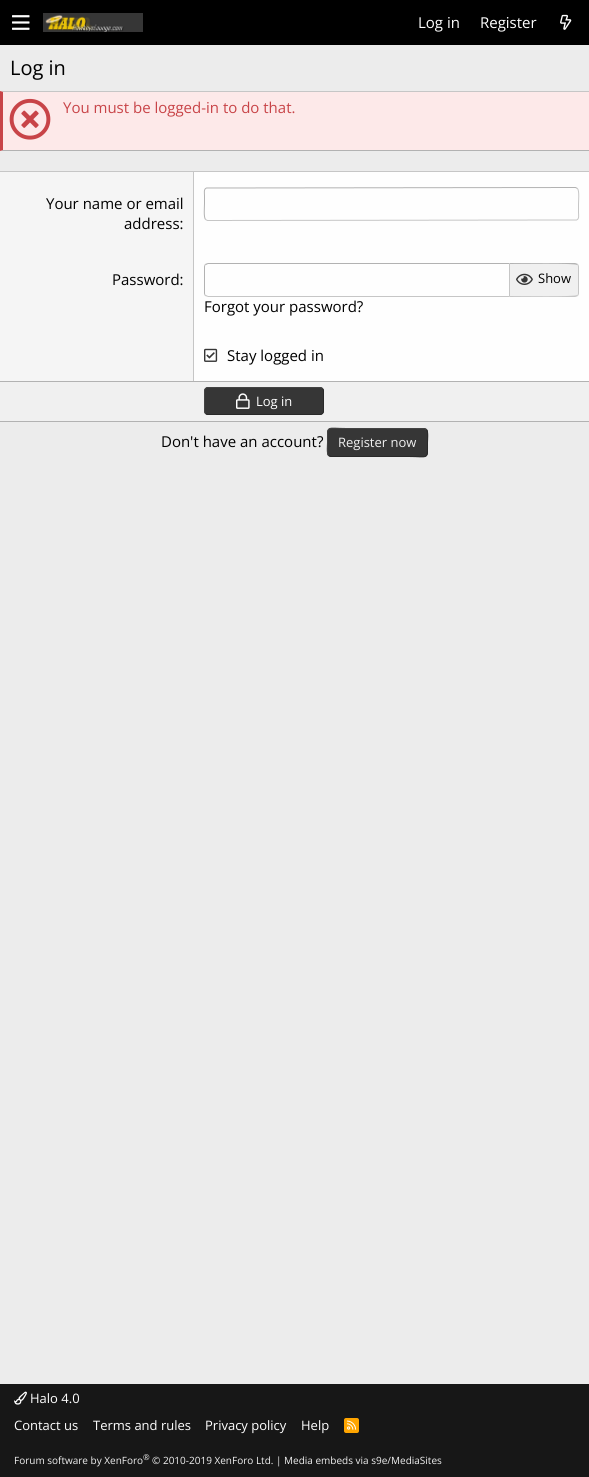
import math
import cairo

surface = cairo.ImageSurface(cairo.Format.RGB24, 589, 1477)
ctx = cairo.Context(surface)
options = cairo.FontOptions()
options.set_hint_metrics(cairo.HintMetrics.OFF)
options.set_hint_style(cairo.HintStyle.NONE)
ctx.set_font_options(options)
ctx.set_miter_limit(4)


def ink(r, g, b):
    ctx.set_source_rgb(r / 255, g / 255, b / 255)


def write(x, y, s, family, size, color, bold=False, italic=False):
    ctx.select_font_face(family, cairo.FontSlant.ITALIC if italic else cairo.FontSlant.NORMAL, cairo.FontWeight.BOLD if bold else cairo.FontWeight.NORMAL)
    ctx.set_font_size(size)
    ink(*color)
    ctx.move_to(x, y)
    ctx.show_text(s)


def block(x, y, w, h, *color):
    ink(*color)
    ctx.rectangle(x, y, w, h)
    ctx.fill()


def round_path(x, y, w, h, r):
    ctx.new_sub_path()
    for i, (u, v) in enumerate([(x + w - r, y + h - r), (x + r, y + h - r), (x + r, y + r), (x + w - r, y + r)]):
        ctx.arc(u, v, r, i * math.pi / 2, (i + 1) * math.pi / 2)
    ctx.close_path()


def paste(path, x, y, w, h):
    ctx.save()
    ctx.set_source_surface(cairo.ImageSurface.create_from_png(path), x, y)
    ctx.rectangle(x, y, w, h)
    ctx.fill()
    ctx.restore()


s1 = dict(family="Open Sans", size=15, color=(255, 255, 255))
s2 = dict(family="Open Sans", size=20, color=(0, 0, 0))
s3 = dict(family="Open Sans", size=15, color=(200, 68, 72))
s4 = dict(family="Open Sans", size=15, color=(0, 0, 0))
s5 = dict(family="Open Sans", size=13, color=(0, 0, 0))
s6 = dict(family="Open Sans", size=13, color=(255, 255, 255))
s7 = dict(family="Open Sans", size=13, color=(240, 240, 240))
s8 = dict(family="Open Sans", size=10, color=(240, 240, 240))
s9 = dict(family="Open Sans", size=8, color=(240, 240, 240))

ink(236, 236, 236)
ctx.paint()
block(0, 0, 589, 45, 0, 0, 0)
paste("pic1.png", 12, 15, 18, 15)
paste("pic2.png", 43, 13, 100, 19)
write(418, 28, "Log in", **s1)
write(480, 28, "Register", **s1)
paste("pic3.png", 560, 14, 12, 16)
write(10, 75, "Log in", **s2)
block(0, 91, 589, 60, 253, 233, 233)
ink(198, 198, 198)
ctx.new_path()
ctx.move_to(0, 91)
ctx.line_to(589, 91)
ctx.line_to(589, 92)
ctx.line_to(3, 92)
ctx.close_path()
ctx.fill()
ink(178, 178, 178)
ctx.new_path()
ctx.move_to(589, 151)
ctx.line_to(0, 151)
ctx.line_to(3, 150)
ctx.line_to(589, 150)
ctx.close_path()
ctx.fill()
ink(200, 68, 72)
ctx.new_path()
ctx.move_to(0, 151)
ctx.line_to(0, 91)
ctx.line_to(3, 92)
ctx.line_to(3, 150)
ctx.close_path()
ctx.fill()
paste("pic4.png", 9, 98, 42, 42)
write(63, 113, "You must be logged-in to do that.", **s3)
block(194, 172, 395, 209, 254, 254, 254)
block(0, 171, 589, 1, 198, 198, 198)
block(0, 421, 589, 1, 178, 178, 178)
block(0, 172, 193, 209, 245, 245, 245)
block(193, 172, 1, 209, 198, 198, 198)
write(46, 209, "Your name or email", **s4)
write(124, 229, "address:", **s4)
ctx.new_path()
ctx.move_to(577.5, 188.5)
ctx.curve_to(579.5, 191, 578.5, 201, 578.5, 204)
ctx.line_to(578.5, 212.5)
ctx.curve_to(578.5, 215, 579.5, 219, 576.5, 220)
ctx.line_to(207.5, 220.5)
ctx.line_to(205.5, 219.5)
ink(198, 198, 198)
ctx.set_line_width(1)
ctx.stroke()
ctx.new_path()
ctx.move_to(205.5, 219.5)
ctx.curve_to(203.5, 217, 204.5, 207, 204.5, 204)
ctx.line_to(204.5, 195.5)
ctx.curve_to(204.5, 193, 203.5, 189, 206.5, 188)
ctx.line_to(575.5, 187.5)
ctx.line_to(577.5, 188.5)
ink(178, 178, 178)
ctx.stroke()
write(112, 285, "Password:", **s4)
ink(178, 178, 178)
ctx.new_path()
ctx.move_to(208, 263)
ctx.line_to(205, 264)
ctx.line_to(206, 265)
ctx.line_to(208, 264)
ctx.line_to(509, 264)
ctx.line_to(509, 263)
ctx.close_path()
ctx.fill()
ink(198, 198, 198)
ctx.new_path()
ctx.move_to(509, 297)
ctx.line_to(509, 296)
ctx.line_to(208, 296)
ctx.line_to(206, 295)
ctx.line_to(205, 296)
ctx.line_to(208, 297)
ctx.close_path()
ctx.fill()
ink(178, 178, 178)
ctx.new_path()
ctx.move_to(204, 267)
ctx.line_to(204, 293)
ctx.curve_to(204, 294, 204.5, 295, 205, 296)
ctx.line_to(206, 295)
ctx.curve_to(205, 295, 205, 294, 205, 293)
ctx.line_to(205, 267)
ctx.curve_to(205, 266, 205, 265, 206, 265)
ctx.line_to(205, 264)
ctx.curve_to(204.5, 265, 204, 266, 204, 267)
ctx.close_path()
ctx.fill()
ink(240, 240, 240)
ctx.new_path()
ctx.move_to(509, 263)
ctx.line_to(575, 263)
ctx.curve_to(577, 263, 579, 265, 579, 267)
ctx.line_to(579, 293)
ctx.curve_to(579, 295, 577, 297, 575, 297)
ctx.line_to(509, 297)
ctx.close_path()
ctx.fill()
ink(178, 178, 178)
ctx.new_path()
ctx.move_to(509, 263)
ctx.line_to(510, 264)
ctx.curve_to(517, 264, 576, 263, 577, 265)
ctx.line_to(578, 264)
ctx.line_to(575, 263)
ctx.close_path()
ctx.fill()
ink(198, 198, 198)
ctx.new_path()
ctx.move_to(579, 293)
ctx.line_to(579, 267)
ctx.curve_to(579, 266, 578.5, 265, 578, 264)
ctx.line_to(577, 265)
ctx.curve_to(578, 265, 578, 266, 578, 267)
ctx.line_to(578, 293)
ctx.curve_to(578, 294, 578, 295, 577, 295)
ctx.line_to(578, 296)
ctx.curve_to(578.5, 295, 579, 294, 579, 293)
ctx.close_path()
ctx.fill()
ctx.new_path()
ctx.move_to(575, 297)
ctx.line_to(578, 296)
ctx.line_to(577, 295)
ctx.curve_to(576, 297, 517, 296, 510, 296)
ctx.line_to(509, 297)
ctx.close_path()
ctx.fill()
ctx.new_path()
ctx.move_to(509, 263)
ctx.line_to(509, 297)
ctx.line_to(510, 296)
ctx.line_to(510, 264)
ctx.close_path()
ctx.fill()
paste("pic5.png", 516, 273, 17, 12)
write(538, 283, "Show", **s5)
write(204, 312, "Forgot your password?", **s4)
paste("pic6.png", 204, 348, 14, 14)
write(227, 361, "Stay logged in", **s4)
block(0, 382, 589, 39, 240, 240, 240)
block(0, 381, 589, 1, 178, 178, 178)
ink(54, 54, 54)
round_path(204, 387, 120, 28, 4)
ctx.fill()
ctx.new_path()
ctx.move_to(322.5, 388.5)
ctx.curve_to(323, 389, 323.5, 390, 323.5, 391)
ctx.line_to(323.5, 411)
ctx.curve_to(323.5, 412, 323, 413, 322.5, 413.5)
ctx.curve_to(322, 414, 321, 414.5, 320, 414.5)
ctx.line_to(208, 414.5)
ctx.curve_to(207, 414.5, 206, 414, 205.5, 413.5)
ink(41, 41, 41)
ctx.stroke()
ctx.new_path()
ctx.move_to(205.5, 413.5)
ctx.curve_to(205, 413, 204.5, 412, 204.5, 411)
ctx.line_to(204.5, 391)
ctx.curve_to(204.5, 390, 205, 389, 205.5, 388.5)
ctx.curve_to(206, 388, 207, 387.5, 208, 387.5)
ctx.line_to(320, 387.5)
ctx.curve_to(321, 387.5, 322, 388, 322.5, 388.5)
ink(67, 67, 67)
ctx.stroke()
paste("pic7.png", 236, 393, 14, 16)
write(256, 406, "Log in", **s6)
write(161, 447, "Don't have an account?", **s4)
ink(54, 54, 54)
round_path(327, 428, 101, 29, 4)
ctx.fill()
ctx.new_path()
ctx.move_to(426.5, 429.5)
ctx.curve_to(428.5, 431.5, 427.5, 440, 427.5, 442.5)
ctx.curve_to(427.5, 460.5, 429, 456.5, 408.5, 456.5)
ctx.line_to(331, 456.5)
ctx.line_to(328.5, 455.5)
ink(41, 41, 41)
ctx.stroke()
ctx.new_path()
ctx.move_to(328.5, 455.5)
ctx.curve_to(326.5, 453.5, 327.5, 445, 327.5, 442.5)
ctx.curve_to(327.5, 424.5, 326, 428.5, 346.5, 428.5)
ctx.line_to(424, 428.5)
ctx.line_to(426.5, 429.5)
ink(67, 67, 67)
ctx.stroke()
write(338, 447, "Register now", **s7)
block(0, 1384, 589, 93, 23, 23, 23)
paste("pic8.png", 14, 1391, 13, 14)
write(30, 1403, "Halo 4.0", **s6)
write(14, 1430, "Contact us", **s6)
write(93, 1430, "Terms and rules", **s6)
write(205, 1430, "Privacy policy", **s6)
write(301, 1430, "Help", **s6)
ink(255, 165, 0)
round_path(344, 1418, 15, 15, 2)
ctx.fill()
paste("pic9.png", 347, 1420, 10, 10)
write(14, 1464, "Forum software by XenForo", **s8)
write(143, 1460, "®", **s9)
write(152, 1464, "© 2010-2019 XenForo Ltd. | Media embeds via s9e/MediaSites", **s8)
surface.write_to_png("screenshot.png")
